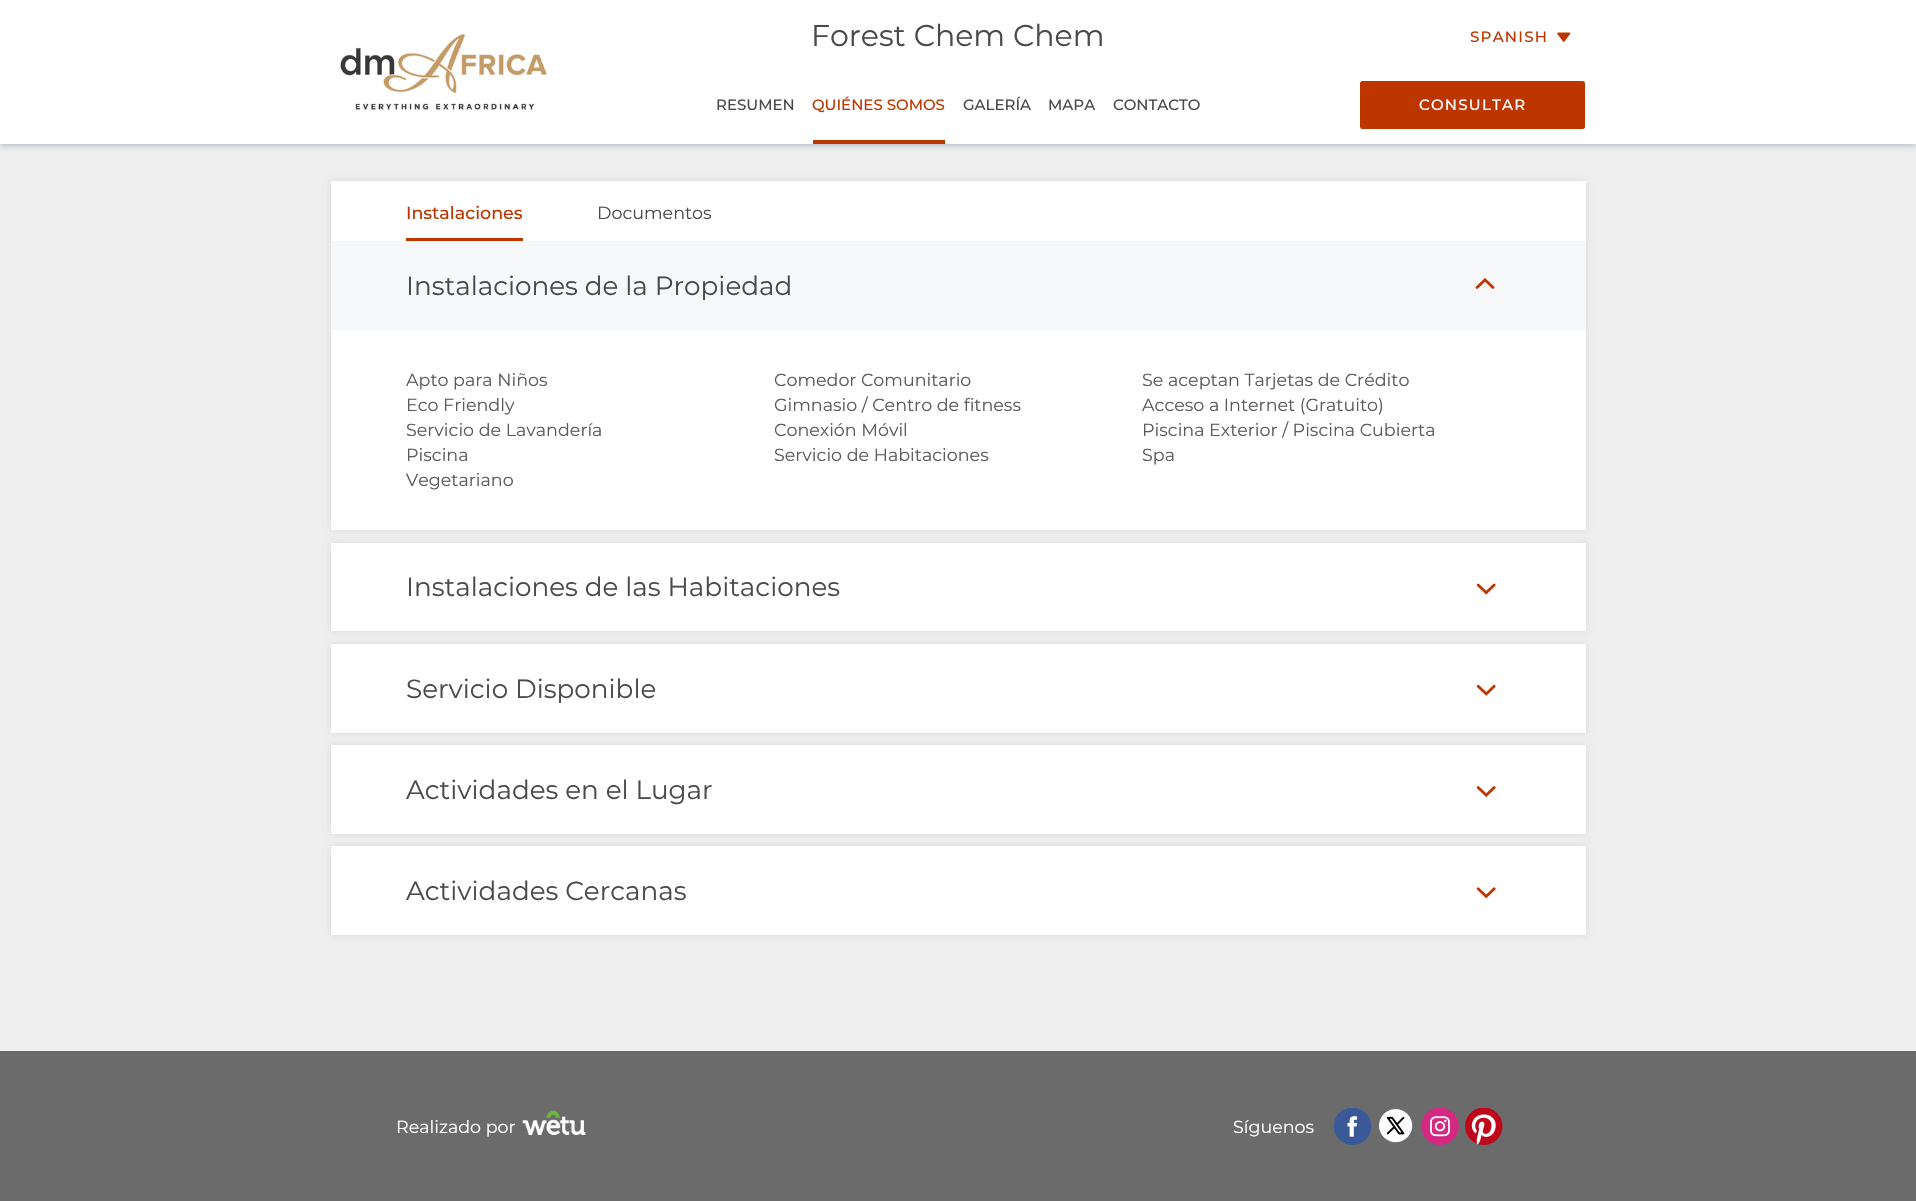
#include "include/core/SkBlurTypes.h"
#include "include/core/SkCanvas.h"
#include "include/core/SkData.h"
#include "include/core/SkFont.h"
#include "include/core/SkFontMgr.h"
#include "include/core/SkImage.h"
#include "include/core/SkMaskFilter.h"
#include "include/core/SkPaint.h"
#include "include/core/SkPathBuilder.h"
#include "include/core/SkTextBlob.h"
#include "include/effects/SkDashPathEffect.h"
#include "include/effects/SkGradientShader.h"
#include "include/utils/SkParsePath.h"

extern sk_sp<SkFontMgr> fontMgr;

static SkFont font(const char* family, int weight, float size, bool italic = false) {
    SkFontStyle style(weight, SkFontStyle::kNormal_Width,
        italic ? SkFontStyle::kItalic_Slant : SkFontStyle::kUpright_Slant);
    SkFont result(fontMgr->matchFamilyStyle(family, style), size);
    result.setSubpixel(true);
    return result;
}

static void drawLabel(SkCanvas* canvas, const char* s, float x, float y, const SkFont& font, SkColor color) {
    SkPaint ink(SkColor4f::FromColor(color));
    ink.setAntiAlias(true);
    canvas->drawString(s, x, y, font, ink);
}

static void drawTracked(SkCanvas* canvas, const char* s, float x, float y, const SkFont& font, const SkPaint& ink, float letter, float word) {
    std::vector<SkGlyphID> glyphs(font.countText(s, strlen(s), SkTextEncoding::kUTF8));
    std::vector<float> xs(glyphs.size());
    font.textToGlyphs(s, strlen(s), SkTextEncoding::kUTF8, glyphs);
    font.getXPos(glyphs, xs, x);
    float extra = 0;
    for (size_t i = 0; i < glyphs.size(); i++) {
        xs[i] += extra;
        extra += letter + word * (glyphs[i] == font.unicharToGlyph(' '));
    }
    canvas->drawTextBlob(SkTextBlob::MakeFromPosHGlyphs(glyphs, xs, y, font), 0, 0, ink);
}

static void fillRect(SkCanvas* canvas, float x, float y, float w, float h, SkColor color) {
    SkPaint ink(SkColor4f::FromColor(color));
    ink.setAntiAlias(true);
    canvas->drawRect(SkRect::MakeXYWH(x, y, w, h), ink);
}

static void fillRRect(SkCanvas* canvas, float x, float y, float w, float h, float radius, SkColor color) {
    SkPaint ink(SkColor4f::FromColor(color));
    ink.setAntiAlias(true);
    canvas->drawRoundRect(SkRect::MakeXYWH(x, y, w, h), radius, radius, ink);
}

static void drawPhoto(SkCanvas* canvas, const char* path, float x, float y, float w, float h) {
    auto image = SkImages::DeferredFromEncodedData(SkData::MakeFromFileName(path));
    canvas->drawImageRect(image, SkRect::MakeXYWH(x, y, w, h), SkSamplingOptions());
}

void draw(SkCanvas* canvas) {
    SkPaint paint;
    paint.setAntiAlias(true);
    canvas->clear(0xFFEFEFEF);
    paint.setColor(0x807F8EA0);
    paint.setMaskFilter(SkMaskFilter::MakeBlur(kNormal_SkBlurStyle, 3));
    canvas->drawRect(SkRect::MakeXYWH(0, 3, 1916, 143), paint);
    paint.setMaskFilter(nullptr);
    fillRect(canvas, 0, 0, 1916, 144, 0xFFFFFFFF);
    drawPhoto(canvas, "assets/img1.png", 340, 34, 207, 76);
    SkFont font1 = font("Montserrat", 400, 30);
    drawLabel(canvas, "Forest Chem Chem", 811, 46, font1, 0xFF4A4A4A);
    SkFont font2 = font("Montserrat", 500, 15);
    drawLabel(canvas, "RESUMEN", 716, 110, font2, 0xFF4A4A4A);
    drawLabel(canvas, "QUIÉNES SOMOS", 812, 110, font2, 0xFFBD3600);
    fillRect(canvas, 813, 140, 132, 4, 0xFFBD3600);
    drawLabel(canvas, "GALERÍA", 963, 110, font2, 0xFF4A4A4A);
    drawLabel(canvas, "MAPA", 1048, 110, font2, 0xFF4A4A4A);
    drawLabel(canvas, "CONTACTO", 1113, 110, font2, 0xFF4A4A4A);
    paint.setColor(0xFFBD3600);
    drawTracked(canvas, "SPANISH", 1470, 42, font2, paint, 1.25f, 0);
    drawPhoto(canvas, "assets/img2.png", 1557, 32, 14, 10);
    fillRRect(canvas, 1360, 81, 225, 48, 2.5f, 0xFFBD3600);
    paint.setColor(0xFFFFFFFF);
    drawTracked(canvas, "CONSULTAR", 1419, 110, font2, paint, 1.25f, 0);
    paint.setColor(0x1A000000);
    paint.setMaskFilter(SkMaskFilter::MakeBlur(kNormal_SkBlurStyle, 3));
    canvas->drawRect(SkRect::MakeXYWH(331, 181, 1255, 349), paint);
    paint.setMaskFilter(nullptr);
    fillRect(canvas, 331, 181, 1255, 349, 0xFFFFFFFF);
    SkFont font3 = font("Montserrat", 500, 17.5f);
    drawLabel(canvas, "Instalaciones", 406, 219, font3, 0xFFBD3600);
    fillRect(canvas, 406, 238, 117, 3, 0xFFBD3600);
    SkFont font4 = font("Montserrat", 400, 17.5f);
    drawLabel(canvas, "Documentos", 597, 219, font4, 0xFF4A4A4A);
    fillRect(canvas, 331, 241, 1255, 89, 0xFFF7F8FA);
    SkFont font5 = font("Montserrat", 400, 26.25f);
    drawLabel(canvas, "Instalaciones de la Propiedad", 406, 295, font5, 0xFF4A4A4A);
    drawPhoto(canvas, "assets/img3.png", 1475, 278, 20, 11);
    drawLabel(canvas, "Apto para Niños", 406, 386, font4, 0xFF5A5A5A);
    drawLabel(canvas, "Comedor Comunitario", 774, 386, font4, 0xFF5A5A5A);
    drawLabel(canvas, "Se aceptan Tarjetas de Crédito", 1142, 386, font4, 0xFF5A5A5A);
    drawLabel(canvas, "Eco Friendly", 406, 411, font4, 0xFF5A5A5A);
    drawLabel(canvas, "Gimnasio / Centro de fitness", 774, 411, font4, 0xFF5A5A5A);
    drawLabel(canvas, "Acceso a Internet (Gratuito)", 1142, 411, font4, 0xFF5A5A5A);
    drawLabel(canvas, "Servicio de Lavandería", 406, 436, font4, 0xFF5A5A5A);
    drawLabel(canvas, "Conexión Móvil", 774, 436, font4, 0xFF5A5A5A);
    drawLabel(canvas, "Piscina Exterior / Piscina Cubierta", 1142, 436, font4, 0xFF5A5A5A);
    drawLabel(canvas, "Piscina", 406, 461, font4, 0xFF5A5A5A);
    drawLabel(canvas, "Servicio de Habitaciones", 774, 461, font4, 0xFF5A5A5A);
    drawLabel(canvas, "Spa", 1142, 461, font4, 0xFF5A5A5A);
    drawLabel(canvas, "Vegetariano", 406, 486, font4, 0xFF5A5A5A);
    paint.setMaskFilter(SkMaskFilter::MakeBlur(kNormal_SkBlurStyle, 3));
    canvas->drawRect(SkRect::MakeXYWH(331, 543, 1255, 88), paint);
    paint.setMaskFilter(nullptr);
    fillRect(canvas, 331, 543, 1255, 88, 0xFFFFFFFF);
    drawLabel(canvas, "Instalaciones de las Habitaciones", 406, 596, font5, 0xFF4A4A4A);
    drawPhoto(canvas, "assets/img4.png", 1476, 583, 20, 12);
    paint.setMaskFilter(SkMaskFilter::MakeBlur(kNormal_SkBlurStyle, 3));
    canvas->drawRect(SkRect::MakeXYWH(331, 644, 1255, 89), paint);
    paint.setMaskFilter(nullptr);
    fillRect(canvas, 331, 644, 1255, 89, 0xFFFFFFFF);
    drawLabel(canvas, "Servicio Disponible", 406, 698, font5, 0xFF4A4A4A);
    drawPhoto(canvas, "assets/img5.png", 1476, 684, 20, 12);
    paint.setMaskFilter(SkMaskFilter::MakeBlur(kNormal_SkBlurStyle, 3));
    canvas->drawRect(SkRect::MakeXYWH(331, 745, 1255, 89), paint);
    paint.setMaskFilter(nullptr);
    fillRect(canvas, 331, 745, 1255, 89, 0xFFFFFFFF);
    drawLabel(canvas, "Actividades en el Lugar", 406, 799, font5, 0xFF4A4A4A);
    drawPhoto(canvas, "assets/img6.png", 1476, 786, 20, 11);
    paint.setMaskFilter(SkMaskFilter::MakeBlur(kNormal_SkBlurStyle, 3));
    canvas->drawRect(SkRect::MakeXYWH(331, 846, 1255, 89), paint);
    paint.setMaskFilter(nullptr);
    fillRect(canvas, 331, 846, 1255, 89, 0xFFFFFFFF);
    drawLabel(canvas, "Actividades Cercanas", 406, 900, font5, 0xFF4A4A4A);
    drawPhoto(canvas, "assets/img7.png", 1476, 887, 20, 12);
    fillRect(canvas, 0, 1051, 1916, 150, 0xFF6B6B6B);
    drawLabel(canvas, "Realizado por", 396, 1133, font4, 0xFFFFFFFF);
    drawPhoto(canvas, "assets/img8.png", 522, 1110, 64, 26);
    drawLabel(canvas, "Síguenos", 1233, 1133, font4, 0xFFFFFFFF);
    drawPhoto(canvas, "assets/img9.png", 1334, 1108, 37, 37);
    drawPhoto(canvas, "assets/img10.png", 1379, 1109, 34, 34);
    drawPhoto(canvas, "assets/img11.png", 1421, 1108, 38, 37);
    drawPhoto(canvas, "assets/img12.png", 1465, 1108, 38, 37);
}
